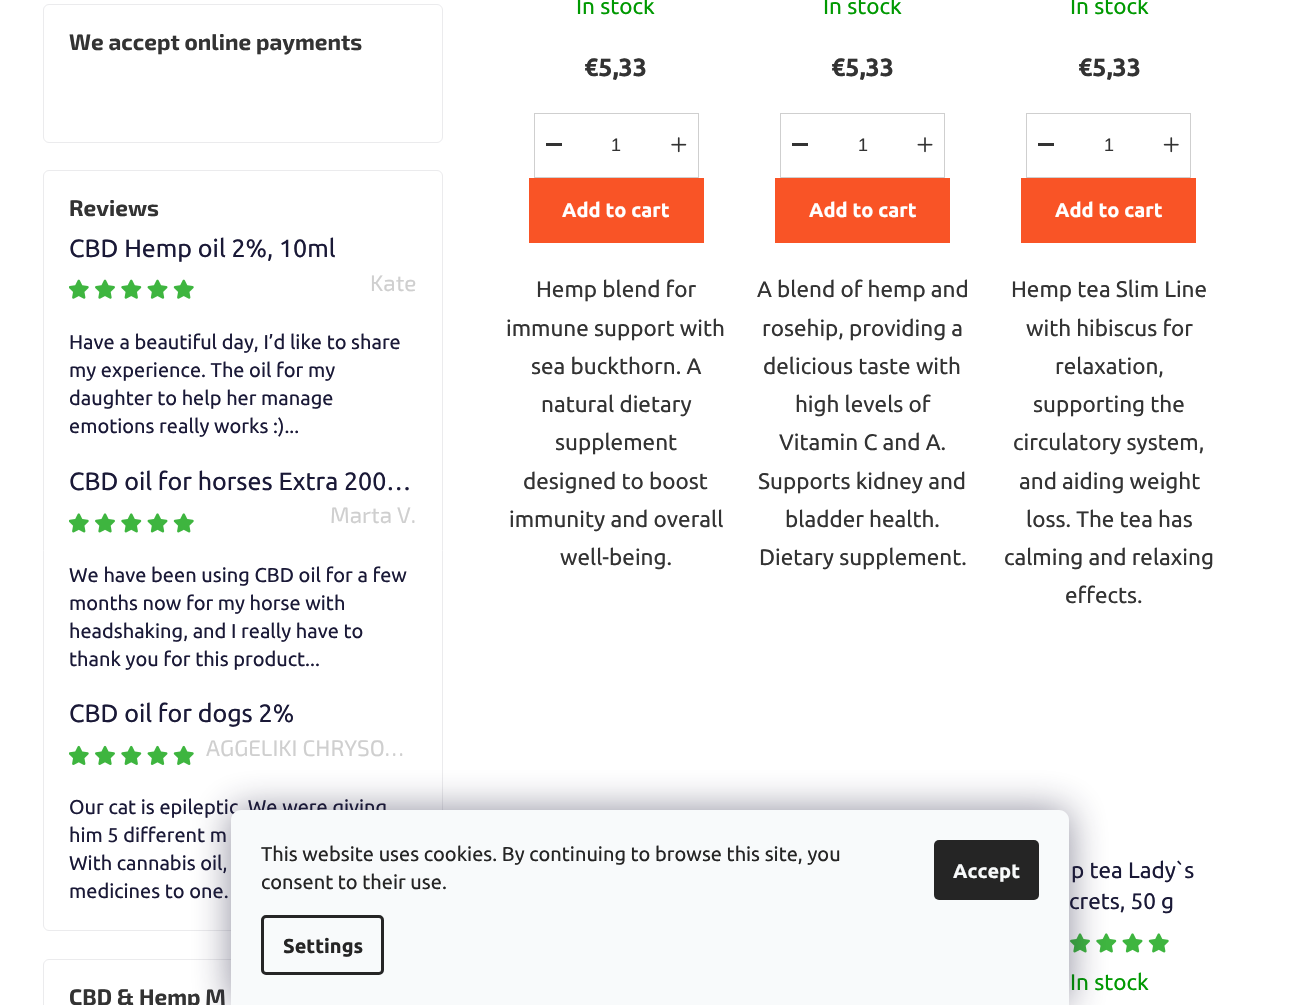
#include "include/core/SkBlurTypes.h"
#include "include/core/SkCanvas.h"
#include "include/core/SkData.h"
#include "include/core/SkFont.h"
#include "include/core/SkFontMgr.h"
#include "include/core/SkImage.h"
#include "include/core/SkMaskFilter.h"
#include "include/core/SkPaint.h"
#include "include/core/SkPathBuilder.h"
#include "include/core/SkTextBlob.h"
#include "include/effects/SkDashPathEffect.h"
#include "include/effects/SkGradientShader.h"
#include "include/utils/SkParsePath.h"

extern sk_sp<SkFontMgr> fontMgr;

static SkFont font(const char* family, int weight, float size, bool italic = false) {
    SkFontStyle style(weight, SkFontStyle::kNormal_Width,
        italic ? SkFontStyle::kItalic_Slant : SkFontStyle::kUpright_Slant);
    SkFont result(fontMgr->matchFamilyStyle(family, style), size);
    result.setSubpixel(true);
    return result;
}

static void drawLabel(SkCanvas* canvas, const char* s, float x, float y, const SkFont& font, SkColor color) {
    SkPaint ink(SkColor4f::FromColor(color));
    ink.setAntiAlias(true);
    canvas->drawString(s, x, y, font, ink);
}

static void fillRect(SkCanvas* canvas, float x, float y, float w, float h, SkColor color) {
    SkPaint ink(SkColor4f::FromColor(color));
    ink.setAntiAlias(true);
    canvas->drawRect(SkRect::MakeXYWH(x, y, w, h), ink);
}

static void fillRRect(SkCanvas* canvas, float x, float y, float w, float h, float radius, SkColor color) {
    SkPaint ink(SkColor4f::FromColor(color));
    ink.setAntiAlias(true);
    canvas->drawRoundRect(SkRect::MakeXYWH(x, y, w, h), radius, radius, ink);
}

static void drawPhoto(SkCanvas* canvas, const char* path, float x, float y, float w, float h) {
    auto image = SkImages::DeferredFromEncodedData(SkData::MakeFromFileName(path));
    canvas->drawImageRect(image, SkRect::MakeXYWH(x, y, w, h), SkSamplingOptions());
}

static SkPath parsePath(const char* data, bool evenOdd = false) {
    SkPath result = *SkParsePath::FromSVGString(data);
    if (evenOdd) result.setFillType(SkPathFillType::kEvenOdd);
    return result;
}

void draw(SkCanvas* canvas) {
    SkPaint paint;
    paint.setAntiAlias(true);
    canvas->clear(0xFFFFFFFF);
    paint.setStroke(true);
    paint.setStrokeWidth(1);
    paint.setColor(0xFFEBEBED);
    canvas->drawRoundRect(SkRect::MakeXYWH(43.5f, 4.5f, 399, 138), 5.5f, 5.5f, paint);
    SkFont font1 = font("Exo 2", 700, 22.5f);
    drawLabel(canvas, "We accept online payments", 69, 50, font1, 0xFF333333);
    canvas->drawRoundRect(SkRect::MakeXYWH(43.5f, 170.5f, 399, 760), 5.5f, 5.5f, paint);
    drawLabel(canvas, "Reviews", 69, 216, font1, 0xFF333333);
    SkFont font2 = font("Ubuntu", 400, 25);
    drawLabel(canvas, "CBD Hemp oil 2%, 10ml", 69, 257, font2, 0xFF1A1937);
    drawPhoto(canvas, "assets/img1.png", 69, 279, 20, 20);
    drawPhoto(canvas, "assets/img2.png", 95, 279, 20, 20);
    drawPhoto(canvas, "assets/img3.png", 121, 279, 21, 20);
    drawPhoto(canvas, "assets/img4.png", 147, 279, 21, 20);
    drawPhoto(canvas, "assets/img5.png", 173, 279, 21, 20);
    SkFont font3 = font("Exo 2", 400, 22.5f);
    drawLabel(canvas, "Kate", 370, 291, font3, 0xFFCFCFCF);
    SkFont font4 = font("Ubuntu", 400, 20);
    drawLabel(canvas, "Have a beautiful day, I’d like to share", 69, 349, font4, 0xFF1A1937);
    drawLabel(canvas, "my experience. The oil for my", 69, 377, font4, 0xFF1A1937);
    drawLabel(canvas, "daughter to help her manage", 69, 405, font4, 0xFF1A1937);
    drawLabel(canvas, "emotions really works :)...", 69, 433, font4, 0xFF1A1937);
    drawLabel(canvas, "CBD oil for horses Extra 200…", 69, 490, font2, 0xFF1A1937);
    drawPhoto(canvas, "assets/img6.png", 69, 513, 20, 20);
    drawPhoto(canvas, "assets/img7.png", 95, 513, 20, 20);
    drawPhoto(canvas, "assets/img8.png", 121, 513, 21, 20);
    drawPhoto(canvas, "assets/img9.png", 147, 513, 21, 20);
    drawPhoto(canvas, "assets/img10.png", 173, 513, 21, 20);
    drawLabel(canvas, "Marta V.", 330, 523, font3, 0xFFCFCFCF);
    drawLabel(canvas, "We have been using CBD oil for a few", 69, 582, font4, 0xFF1A1937);
    drawLabel(canvas, "months now for my horse with", 69, 610, font4, 0xFF1A1937);
    drawLabel(canvas, "headshaking, and I really have to", 69, 638, font4, 0xFF1A1937);
    drawLabel(canvas, "thank you for this product...", 69, 666, font4, 0xFF1A1937);
    drawLabel(canvas, "CBD oil for dogs 2%", 69, 722, font2, 0xFF1A1937);
    drawPhoto(canvas, "assets/img11.png", 69, 745, 20, 20);
    drawPhoto(canvas, "assets/img12.png", 95, 745, 20, 20);
    drawPhoto(canvas, "assets/img13.png", 121, 745, 21, 20);
    drawPhoto(canvas, "assets/img14.png", 147, 745, 21, 20);
    drawPhoto(canvas, "assets/img15.png", 173, 745, 21, 20);
    drawLabel(canvas, "AGGELIKI CHRYSO…", 206, 756, font3, 0xFFCFCFCF);
    drawLabel(canvas, "Our cat is epileptic. We were giving", 69, 814, font4, 0xFF1A1937);
    drawLabel(canvas, "him 5 different m", 69, 842, font4, 0xFF1A1937);
    drawLabel(canvas, "With cannabis oil,", 69, 870, font4, 0xFF1A1937);
    drawLabel(canvas, "medicines to one.", 69, 898, font4, 0xFF1A1937);
    canvas->drawRoundRect(SkRect::MakeXYWH(43.5f, 959.5f, 399, 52), 5.5f, 5.5f, paint);
    drawLabel(canvas, "CBD & Hemp M", 69, 1005, font1, 0xFF333333);
    SkFont font5 = font("Ubuntu", 400, 22.5f);
    drawLabel(canvas, "In stock", 576, 14, font5, 0xFF009901);
    SkFont font6 = font("Ubuntu", 700, 25);
    drawLabel(canvas, "€5,33", 584, 76, font6, 0xFF333333);
    paint.setColor(0xFFCFCFCF);
    canvas->drawRect(SkRect::MakeXYWH(534.5f, 113.5f, 164, 64), paint);
    fillRect(canvas, 546, 143, 16, 3, 0xFF333333);
    SkFont font7 = font("Liberation Sans", 400, 18);
    drawLabel(canvas, "1", 611, 151, font7, 0xFF333333);
    drawPhoto(canvas, "assets/img16.png", 671, 137, 16, 16);
    fillRect(canvas, 529, 178, 175, 65, 0xFFF95426);
    SkFont font8 = font("Ubuntu", 700, 20);
    drawLabel(canvas, "Add to cart", 562, 217, font8, 0xFFFFFFFF);
    drawLabel(canvas, "Hemp blend for", 536, 297, font5, 0xFF333333);
    drawLabel(canvas, "immune support with", 506, 336, font5, 0xFF333333);
    drawLabel(canvas, "sea buckthorn. A", 531, 374, font5, 0xFF333333);
    drawLabel(canvas, "natural dietary", 541, 412, font5, 0xFF333333);
    drawLabel(canvas, "supplement", 555, 450, font5, 0xFF333333);
    drawLabel(canvas, "designed to boost", 523, 489, font5, 0xFF333333);
    drawLabel(canvas, "immunity and overall", 509, 527, font5, 0xFF333333);
    drawLabel(canvas, "well-being.", 560, 565, font5, 0xFF333333);
    drawLabel(canvas, "In stock", 823, 14, font5, 0xFF009901);
    drawLabel(canvas, "€5,33", 831, 76, font6, 0xFF333333);
    canvas->drawRect(SkRect::MakeXYWH(780.5f, 113.5f, 164, 64), paint);
    fillRect(canvas, 792, 143, 16, 3, 0xFF333333);
    drawLabel(canvas, "1", 858, 151, font7, 0xFF333333);
    drawPhoto(canvas, "assets/img17.png", 917, 137, 16, 16);
    fillRect(canvas, 775, 178, 175, 65, 0xFFF95426);
    drawLabel(canvas, "Add to cart", 809, 217, font8, 0xFFFFFFFF);
    drawLabel(canvas, "A blend of hemp and", 757, 297, font5, 0xFF333333);
    drawLabel(canvas, "rosehip, providing a", 762, 336, font5, 0xFF333333);
    drawLabel(canvas, "delicious taste with", 763, 374, font5, 0xFF333333);
    drawLabel(canvas, "high levels of", 795, 412, font5, 0xFF333333);
    drawLabel(canvas, "Vitamin C and A.", 779, 450, font5, 0xFF333333);
    drawLabel(canvas, "Supports kidney and", 758, 489, font5, 0xFF333333);
    drawLabel(canvas, "bladder health.", 785, 527, font5, 0xFF333333);
    drawLabel(canvas, "Dietary supplement.", 759, 565, font5, 0xFF333333);
    drawLabel(canvas, "In stock", 1070, 14, font5, 0xFF009901);
    drawLabel(canvas, "€5,33", 1078, 76, font6, 0xFF333333);
    canvas->drawRect(SkRect::MakeXYWH(1026.5f, 113.5f, 164, 64), paint);
    fillRect(canvas, 1038, 143, 16, 3, 0xFF333333);
    drawLabel(canvas, "1", 1104, 151, font7, 0xFF333333);
    drawPhoto(canvas, "assets/img18.png", 1163, 137, 16, 16);
    fillRect(canvas, 1021, 178, 175, 65, 0xFFF95426);
    drawLabel(canvas, "Add to cart", 1055, 217, font8, 0xFFFFFFFF);
    drawLabel(canvas, "Hemp tea Slim Line", 1011, 297, font5, 0xFF333333);
    drawLabel(canvas, "with hibiscus for", 1026, 336, font5, 0xFF333333);
    drawLabel(canvas, "relaxation,", 1055, 374, font5, 0xFF333333);
    drawLabel(canvas, "supporting the", 1033, 412, font5, 0xFF333333);
    drawLabel(canvas, "circulatory system,", 1013, 450, font5, 0xFF333333);
    drawLabel(canvas, "and aiding weight", 1019, 489, font5, 0xFF333333);
    drawLabel(canvas, "loss. The tea has", 1026, 527, font5, 0xFF333333);
    drawLabel(canvas, "calming and relaxing", 1004, 565, font5, 0xFF333333);
    drawLabel(canvas, "effects.", 1065, 603, font5, 0xFF333333);
    drawLabel(canvas, "p tea Lady`s", 1071, 878, font5, 0xFF1A1937);
    drawLabel(canvas, "crets, 50 g", 1069, 909, font5, 0xFF1A1937);
    drawPhoto(canvas, "assets/img7.png", 1070, 933, 20, 20);
    drawPhoto(canvas, "assets/img8.png", 1096, 933, 21, 20);
    drawPhoto(canvas, "assets/img9.png", 1122, 933, 21, 20);
    drawPhoto(canvas, "assets/img10.png", 1148, 933, 21, 20);
    drawLabel(canvas, "In stock", 1070, 990, font5, 0xFF009901);
    paint.setStroke(false);
    paint.setColor(0x801B1939);
    paint.setMaskFilter(SkMaskFilter::MakeBlur(kNormal_SkBlurStyle, 19));
    canvas->drawRoundRect(SkRect::MakeXYWH(231, 810, 838, 195), 10, 10, paint);
    paint.setMaskFilter(nullptr);
    paint.setColor(0xFFF8FAFB);
    canvas->drawPath(parsePath("M241 810H1059C1064.5 810 1069 814.5 1069 820V1005H231V820C231 814.5 235.5 810 241 810Z"), paint);
    drawLabel(canvas, "This website uses cookies. By continuing to browse this site, you", 261, 861, font4, 0xFF252525);
    drawLabel(canvas, "consent to their use.", 261, 889, font4, 0xFF252525);
    paint.setStroke(true);
    paint.setStrokeWidth(3);
    paint.setColor(0xFF252525);
    canvas->drawRoundRect(SkRect::MakeXYWH(262.5f, 916.5f, 120, 57), 3.5f, 3.5f, paint);
    drawLabel(canvas, "Settings", 283, 953, font8, 0xFF252525);
    fillRRect(canvas, 934, 840, 105, 60, 5, 0xFF252525);
    drawLabel(canvas, "Accept", 953, 878, font8, 0xFFF8FAFB);
}
